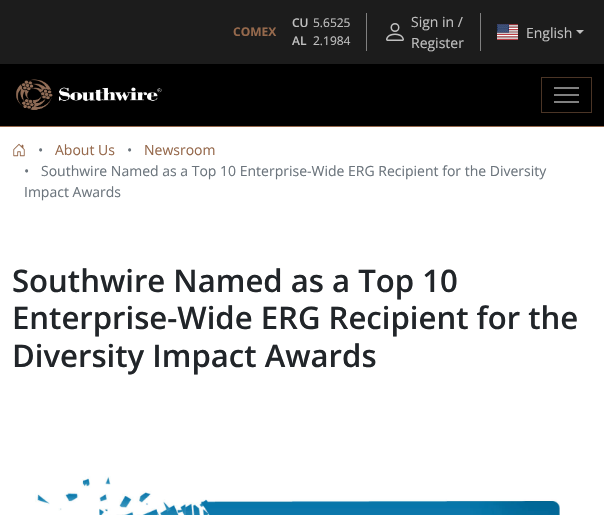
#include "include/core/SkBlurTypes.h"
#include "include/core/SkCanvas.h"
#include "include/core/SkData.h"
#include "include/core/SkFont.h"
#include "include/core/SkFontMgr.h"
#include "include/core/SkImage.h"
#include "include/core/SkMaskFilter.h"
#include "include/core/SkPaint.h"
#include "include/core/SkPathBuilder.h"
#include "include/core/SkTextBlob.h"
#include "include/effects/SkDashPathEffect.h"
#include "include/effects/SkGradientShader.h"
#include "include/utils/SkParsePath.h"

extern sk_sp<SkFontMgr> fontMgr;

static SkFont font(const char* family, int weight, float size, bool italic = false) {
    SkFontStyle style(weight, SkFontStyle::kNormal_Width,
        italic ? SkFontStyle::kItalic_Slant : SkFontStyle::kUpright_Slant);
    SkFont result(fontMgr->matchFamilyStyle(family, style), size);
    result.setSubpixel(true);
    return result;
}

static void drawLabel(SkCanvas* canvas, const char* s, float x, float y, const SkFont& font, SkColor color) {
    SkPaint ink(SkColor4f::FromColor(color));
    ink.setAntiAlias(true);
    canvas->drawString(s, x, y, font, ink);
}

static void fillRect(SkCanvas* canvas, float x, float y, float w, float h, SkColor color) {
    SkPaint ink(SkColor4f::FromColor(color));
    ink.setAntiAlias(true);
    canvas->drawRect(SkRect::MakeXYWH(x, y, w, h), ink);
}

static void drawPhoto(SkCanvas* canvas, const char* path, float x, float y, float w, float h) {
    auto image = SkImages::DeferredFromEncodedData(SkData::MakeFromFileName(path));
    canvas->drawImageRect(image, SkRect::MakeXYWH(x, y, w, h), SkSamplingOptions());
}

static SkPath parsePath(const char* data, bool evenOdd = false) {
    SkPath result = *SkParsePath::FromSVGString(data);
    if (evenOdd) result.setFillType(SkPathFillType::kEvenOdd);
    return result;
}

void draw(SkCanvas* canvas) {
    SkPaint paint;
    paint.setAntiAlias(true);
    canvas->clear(0xFFFFFFFF);
    fillRect(canvas, 0, 64, 604, 62, 0xFF000000);
    fillRect(canvas, 0, 0, 604, 64, 0xFF1C1C1C);
    SkFont font1 = font("Open Sans", 700, 12);
    drawLabel(canvas, "COMEX", 233, 36, font1, 0xFF96694C);
    SkFont font2 = font("Open Sans", 600, 12);
    drawLabel(canvas, "CU", 292, 27, font2, 0xFFC0C0C0);
    SkFont font3 = font("Open Sans", 400, 12);
    drawLabel(canvas, "5.6525", 313, 27, font3, 0xFFC0C0C0);
    drawLabel(canvas, "AL", 292, 45, font2, 0xFFC0C0C0);
    drawLabel(canvas, "2.1984", 313, 45, font3, 0xFFC0C0C0);
    fillRect(canvas, 366, 13, 1, 38, 0xFF808080);
    drawPhoto(canvas, "assets/img1.png", 386, 23, 18, 18);
    SkFont font4 = font("Open Sans", 400, 14);
    drawLabel(canvas, "Sign in /", 411, 27, font4, 0xFFC0C0C0);
    drawLabel(canvas, "Register", 411, 48, font4, 0xFFC0C0C0);
    fillRect(canvas, 480, 13, 1, 38, 0xFF808080);
    drawPhoto(canvas, "assets/img2.png", 497, 24, 21, 16);
    drawLabel(canvas, "English", 526, 38, font4, 0xFFC0C0C0);
    paint.setColor(0xFFC0C0C0);
    canvas->drawPath(parsePath("M576 30H584L580 34Z"), paint);
    fillRect(canvas, 0, 126, 604, 1, 0xFF96694C);
    drawPhoto(canvas, "assets/img3.png", 16, 79, 146, 31);
    paint.setStroke(true);
    paint.setStrokeWidth(1);
    paint.setColor(0xFF4B3526);
    canvas->drawRect(SkRect::MakeXYWH(541.5f, 77.5f, 50, 35), paint);
    fillRect(canvas, 554, 87, 25, 2, 0xFF808080);
    fillRect(canvas, 554, 94, 25, 2, 0xFF808080);
    fillRect(canvas, 554, 101, 25, 2, 0xFF808080);
    drawPhoto(canvas, "assets/img4.png", 13, 143, 12, 14);
    drawLabel(canvas, "•", 38, 155, font4, 0xFF6C757D);
    drawLabel(canvas, "About Us", 55, 155, font4, 0xFF96694C);
    drawLabel(canvas, "•", 127, 155, font4, 0xFF6C757D);
    drawLabel(canvas, "Newsroom", 144, 155, font4, 0xFF96694C);
    drawLabel(canvas, "•", 24, 176, font4, 0xFF6C757D);
    drawLabel(canvas, "Southwire Named as a Top 10 Enterprise-Wide ERG Recipient for the Diversity", 41, 176, font4, 0xFF6C757D);
    drawLabel(canvas, "Impact Awards", 24, 197, font4, 0xFF6C757D);
    SkFont font5 = font("Open Sans", 600, 31.1f);
    drawLabel(canvas, "Southwire Named as a Top 10", 12, 292, font5, 0xFF212529);
    drawLabel(canvas, "Enterprise-Wide ERG Recipient for the", 12, 329, font5, 0xFF212529);
    drawLabel(canvas, "Diversity Impact Awards", 12, 367, font5, 0xFF212529);
    drawPhoto(canvas, "assets/img5.png", 35, 476, 525, 39);
}
